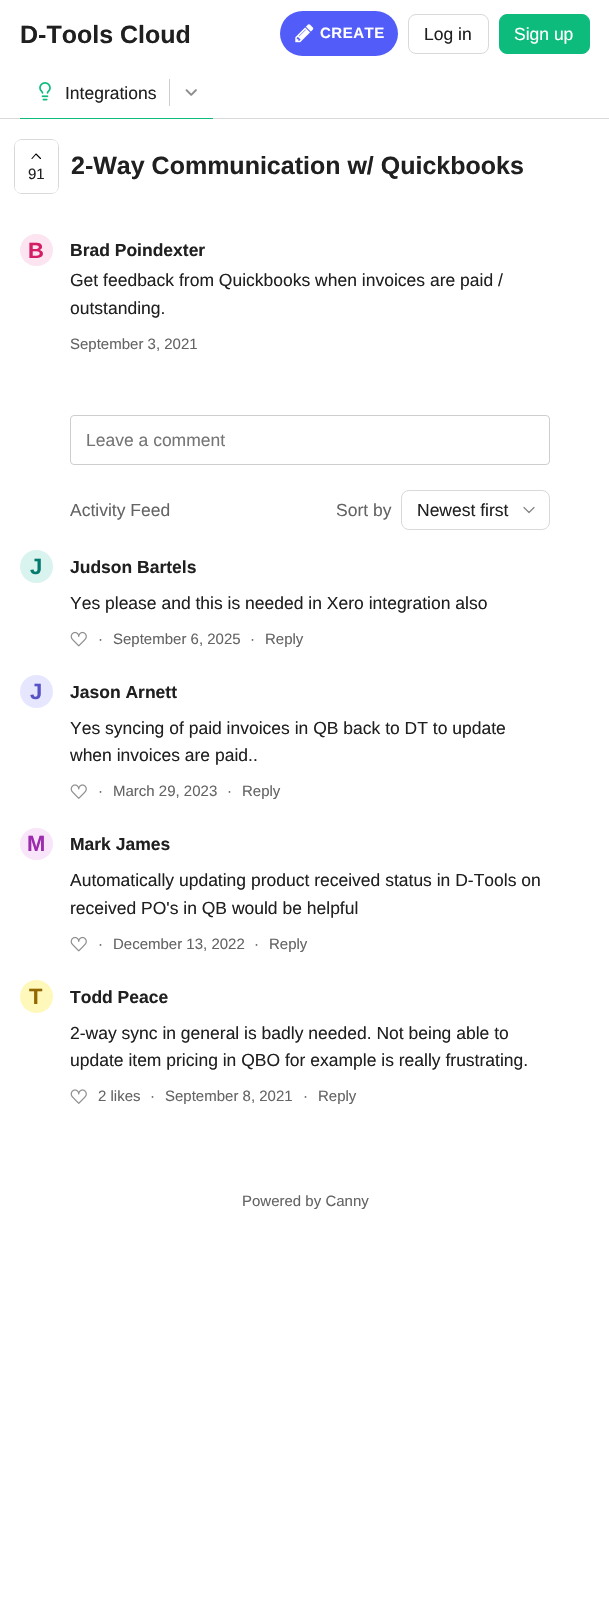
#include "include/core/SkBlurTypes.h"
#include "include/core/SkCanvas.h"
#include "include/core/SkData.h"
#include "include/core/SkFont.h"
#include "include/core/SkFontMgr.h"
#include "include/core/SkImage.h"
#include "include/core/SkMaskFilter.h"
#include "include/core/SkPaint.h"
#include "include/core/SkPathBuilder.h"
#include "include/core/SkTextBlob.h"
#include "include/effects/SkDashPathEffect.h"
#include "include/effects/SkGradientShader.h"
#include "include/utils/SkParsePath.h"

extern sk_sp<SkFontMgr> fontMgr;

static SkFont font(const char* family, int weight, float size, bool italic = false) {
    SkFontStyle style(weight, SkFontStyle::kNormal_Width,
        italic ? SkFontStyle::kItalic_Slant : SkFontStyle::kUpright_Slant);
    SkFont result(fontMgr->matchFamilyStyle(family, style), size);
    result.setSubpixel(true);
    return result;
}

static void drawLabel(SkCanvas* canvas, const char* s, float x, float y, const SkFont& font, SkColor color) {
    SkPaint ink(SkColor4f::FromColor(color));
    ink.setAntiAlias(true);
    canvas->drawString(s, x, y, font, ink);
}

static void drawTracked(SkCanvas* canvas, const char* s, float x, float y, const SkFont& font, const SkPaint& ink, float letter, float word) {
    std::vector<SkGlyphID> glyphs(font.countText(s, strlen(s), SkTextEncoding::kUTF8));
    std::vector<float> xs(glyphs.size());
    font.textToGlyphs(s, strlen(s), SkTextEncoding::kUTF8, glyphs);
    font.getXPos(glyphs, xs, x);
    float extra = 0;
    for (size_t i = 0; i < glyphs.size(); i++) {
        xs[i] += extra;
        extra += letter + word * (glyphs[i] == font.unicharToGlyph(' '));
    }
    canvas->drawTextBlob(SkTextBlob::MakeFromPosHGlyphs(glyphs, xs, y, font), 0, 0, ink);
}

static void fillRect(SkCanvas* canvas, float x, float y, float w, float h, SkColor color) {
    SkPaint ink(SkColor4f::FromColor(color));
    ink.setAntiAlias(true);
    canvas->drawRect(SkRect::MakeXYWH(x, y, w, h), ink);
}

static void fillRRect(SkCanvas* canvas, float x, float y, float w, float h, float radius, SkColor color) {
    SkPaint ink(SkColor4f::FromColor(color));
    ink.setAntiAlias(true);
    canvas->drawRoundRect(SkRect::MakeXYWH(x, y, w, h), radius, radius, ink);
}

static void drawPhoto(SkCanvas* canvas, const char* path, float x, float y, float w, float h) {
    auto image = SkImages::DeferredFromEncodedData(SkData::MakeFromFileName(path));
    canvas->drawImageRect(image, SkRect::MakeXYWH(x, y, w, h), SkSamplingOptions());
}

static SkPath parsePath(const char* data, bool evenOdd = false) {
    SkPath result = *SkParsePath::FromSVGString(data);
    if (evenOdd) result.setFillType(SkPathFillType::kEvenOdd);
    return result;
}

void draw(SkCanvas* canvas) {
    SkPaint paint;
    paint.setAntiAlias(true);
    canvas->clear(0xFFFFFFFF);
    fillRect(canvas, 0, 118, 609, 1, 0xFFD9D9D9);
    SkFont font1 = font("Liberation Sans", 700, 25);
    drawLabel(canvas, "D-Tools Cloud", 20, 43, font1, 0xFF202020);
    fillRRect(canvas, 280, 11, 118, 45, 22.5f, 0xFF525DF9);
    drawPhoto(canvas, "assets/img1.png", 295, 24, 19, 19);
    SkFont font2 = font("Liberation Sans", 700, 15);
    paint.setColor(0xFFFFFFFF);
    drawTracked(canvas, "CREATE", 320, 38, font2, paint, 0.5f, 0);
    paint.setStroke(true);
    paint.setStrokeWidth(1);
    paint.setColor(0xFFD9D9D9);
    canvas->drawRoundRect(SkRect::MakeXYWH(408.5f, 14.5f, 80, 39), 7.5f, 7.5f, paint);
    SkFont font3 = font("Liberation Sans", 400, 17.5f);
    drawLabel(canvas, "Log in", 424, 40, font3, 0xFF202020);
    paint.setStroke(false);
    paint.setColor(0xFF0DBB7D);
    canvas->drawRoundRect(SkRect::MakeXYWH(499.5f, 14.5f, 90, 39), 7.5f, 7.5f, paint);
    paint.setStroke(true);
    canvas->drawRoundRect(SkRect::MakeXYWH(499.5f, 14.5f, 90, 39), 7.5f, 7.5f, paint);
    drawLabel(canvas, "Sign up", 514, 40, font3, 0xFFFFFFFF);
    fillRect(canvas, 20, 118, 193, 1, 0xFF0DBB7D);
    drawPhoto(canvas, "assets/img2.png", 39, 82, 12, 19);
    fillRect(canvas, 169, 79, 1, 27, 0xFFCECECE);
    drawLabel(canvas, "Integrations", 65, 99, font3, 0xFF202020);
    drawPhoto(canvas, "assets/img3.png", 185, 89, 12, 7);
    paint.setColor(0xFFD9D9D9);
    canvas->drawRoundRect(SkRect::MakeXYWH(14.5f, 139.5f, 44, 54), 7.5f, 7.5f, paint);
    fillRRect(canvas, 15, 140, 43, 53, 6, 0xFFFFFFFF);
    paint.setStrokeWidth(1.1f);
    paint.setStrokeCap(SkPaint::kRound_Cap);
    paint.setStrokeJoin(SkPaint::kRound_Join);
    paint.setColor(0xFF000000);
    canvas->drawPath(parsePath("M40.5 158.5L36 154L32 158.5"), paint);
    SkFont font4 = font("Liberation Sans", 400, 15);
    drawLabel(canvas, "91", 28, 179, font4, 0xFF202020);
    drawLabel(canvas, "2-Way Communication w/ Quickbooks", 71, 174, font1, 0xFF202020);
    fillRRect(canvas, 20, 234, 33, 32, 16, 0xFFFCE5F0);
    SkFont font5 = font("Liberation Sans", 700, 22);
    drawLabel(canvas, "B", 28, 258, font5, 0xFFD31E66);
    SkFont font6 = font("Liberation Sans", 700, 17.5f);
    drawLabel(canvas, "Brad Poindexter", 70, 256, font6, 0xFF202020);
    drawLabel(canvas, "Get feedback from Quickbooks when invoices are paid /", 70, 286, font3, 0xFF202020);
    drawLabel(canvas, "outstanding.", 70, 314, font3, 0xFF202020);
    drawLabel(canvas, "September 3, 2021", 70, 349, font4, 0xFF646464);
    paint.setStrokeWidth(1);
    paint.setStrokeCap(SkPaint::kButt_Cap);
    paint.setStrokeJoin(SkPaint::kMiter_Join);
    paint.setColor(0xFFCECECE);
    canvas->drawRoundRect(SkRect::MakeXYWH(70.5f, 415.5f, 479, 49), 3.5f, 3.5f, paint);
    drawLabel(canvas, "Leave a comment", 86, 446, font3, 0xFF757575);
    drawLabel(canvas, "Activity Feed", 70, 516, font3, 0xFF646464);
    drawLabel(canvas, "Sort by", 336, 516, font3, 0xFF646464);
    paint.setColor(0xFFD9D9D9);
    canvas->drawRoundRect(SkRect::MakeXYWH(401.5f, 490.5f, 148, 39), 7.5f, 7.5f, paint);
    drawLabel(canvas, "Newest first", 417, 516, font3, 0xFF202020);
    paint.setStrokeWidth(1.2f);
    paint.setStrokeCap(SkPaint::kRound_Cap);
    paint.setStrokeJoin(SkPaint::kRound_Join);
    paint.setColor(0xFF838383);
    canvas->drawPath(parsePath("M524 507.5L529 512.5L534 507.5"), paint);
    paint.setStroke(false);
    paint.setColor(0xFFD9F3EE);
    canvas->drawCircle(36.5f, 566.5f, 16.5f, paint);
    drawLabel(canvas, "J", 30, 574, font5, 0xFF067A6F);
    drawLabel(canvas, "Judson Bartels", 70, 573, font6, 0xFF202020);
    drawLabel(canvas, "Yes please and this is needed in Xero integration also", 70, 609, font3, 0xFF202020);
    drawPhoto(canvas, "assets/img4.png", 70, 631, 17, 16);
    drawLabel(canvas, "·", 98, 644, font4, 0xFF646464);
    drawLabel(canvas, "September 6, 2025", 113, 644, font4, 0xFF646464);
    drawLabel(canvas, "·", 250, 644, font4, 0xFF646464);
    drawLabel(canvas, "Reply", 265, 644, font4, 0xFF646464);
    paint.setColor(0xFFE6E7FF);
    canvas->drawCircle(36.5f, 691.5f, 16.5f, paint);
    drawLabel(canvas, "J", 30, 699, font5, 0xFF5753C6);
    drawLabel(canvas, "Jason Arnett", 70, 698, font6, 0xFF202020);
    drawLabel(canvas, "Yes syncing of paid invoices in QB back to DT to update", 70, 734, font3, 0xFF202020);
    drawLabel(canvas, "when invoices are paid..", 70, 761, font3, 0xFF202020);
    drawPhoto(canvas, "assets/img5.png", 70, 784, 17, 15);
    drawLabel(canvas, "·", 98, 796, font4, 0xFF646464);
    drawLabel(canvas, "March 29, 2023", 113, 796, font4, 0xFF646464);
    drawLabel(canvas, "·", 227, 796, font4, 0xFF646464);
    drawLabel(canvas, "Reply", 242, 796, font4, 0xFF646464);
    fillRRect(canvas, 20, 828, 33, 32, 16, 0xFFF9E5F9);
    drawLabel(canvas, "M", 27, 851, font5, 0xFF9C2BAD);
    drawLabel(canvas, "Mark James", 70, 850, font6, 0xFF202020);
    drawLabel(canvas, "Automatically updating product received status in D-Tools on", 70, 886, font3, 0xFF202020);
    drawLabel(canvas, "received PO's in QB would be helpful", 70, 914, font3, 0xFF202020);
    drawPhoto(canvas, "assets/img4.png", 70, 936, 17, 16);
    drawLabel(canvas, "·", 98, 949, font4, 0xFF646464);
    drawLabel(canvas, "December 13, 2022", 113, 949, font4, 0xFF646464);
    drawLabel(canvas, "·", 254, 949, font4, 0xFF646464);
    drawLabel(canvas, "Reply", 269, 949, font4, 0xFF646464);
    paint.setColor(0xFFFFF8BB);
    canvas->drawCircle(36.5f, 996.5f, 16.5f, paint);
    drawLabel(canvas, "T", 29, 1004, font5, 0xFF946800);
    drawLabel(canvas, "Todd Peace", 70, 1003, font6, 0xFF202020);
    drawLabel(canvas, "2-way sync in general is badly needed. Not being able to", 70, 1039, font3, 0xFF202020);
    drawLabel(canvas, "update item pricing in QBO for example is really frustrating.", 70, 1066, font3, 0xFF202020);
    drawPhoto(canvas, "assets/img5.png", 70, 1089, 17, 15);
    drawLabel(canvas, "2 likes", 98, 1101, font4, 0xFF646464);
    drawLabel(canvas, "·", 150, 1101, font4, 0xFF646464);
    drawLabel(canvas, "September 8, 2021", 165, 1101, font4, 0xFF646464);
    drawLabel(canvas, "·", 303, 1101, font4, 0xFF646464);
    drawLabel(canvas, "Reply", 318, 1101, font4, 0xFF646464);
    drawLabel(canvas, "Powered by Canny", 242, 1206, font4, 0xFF646464);
}
